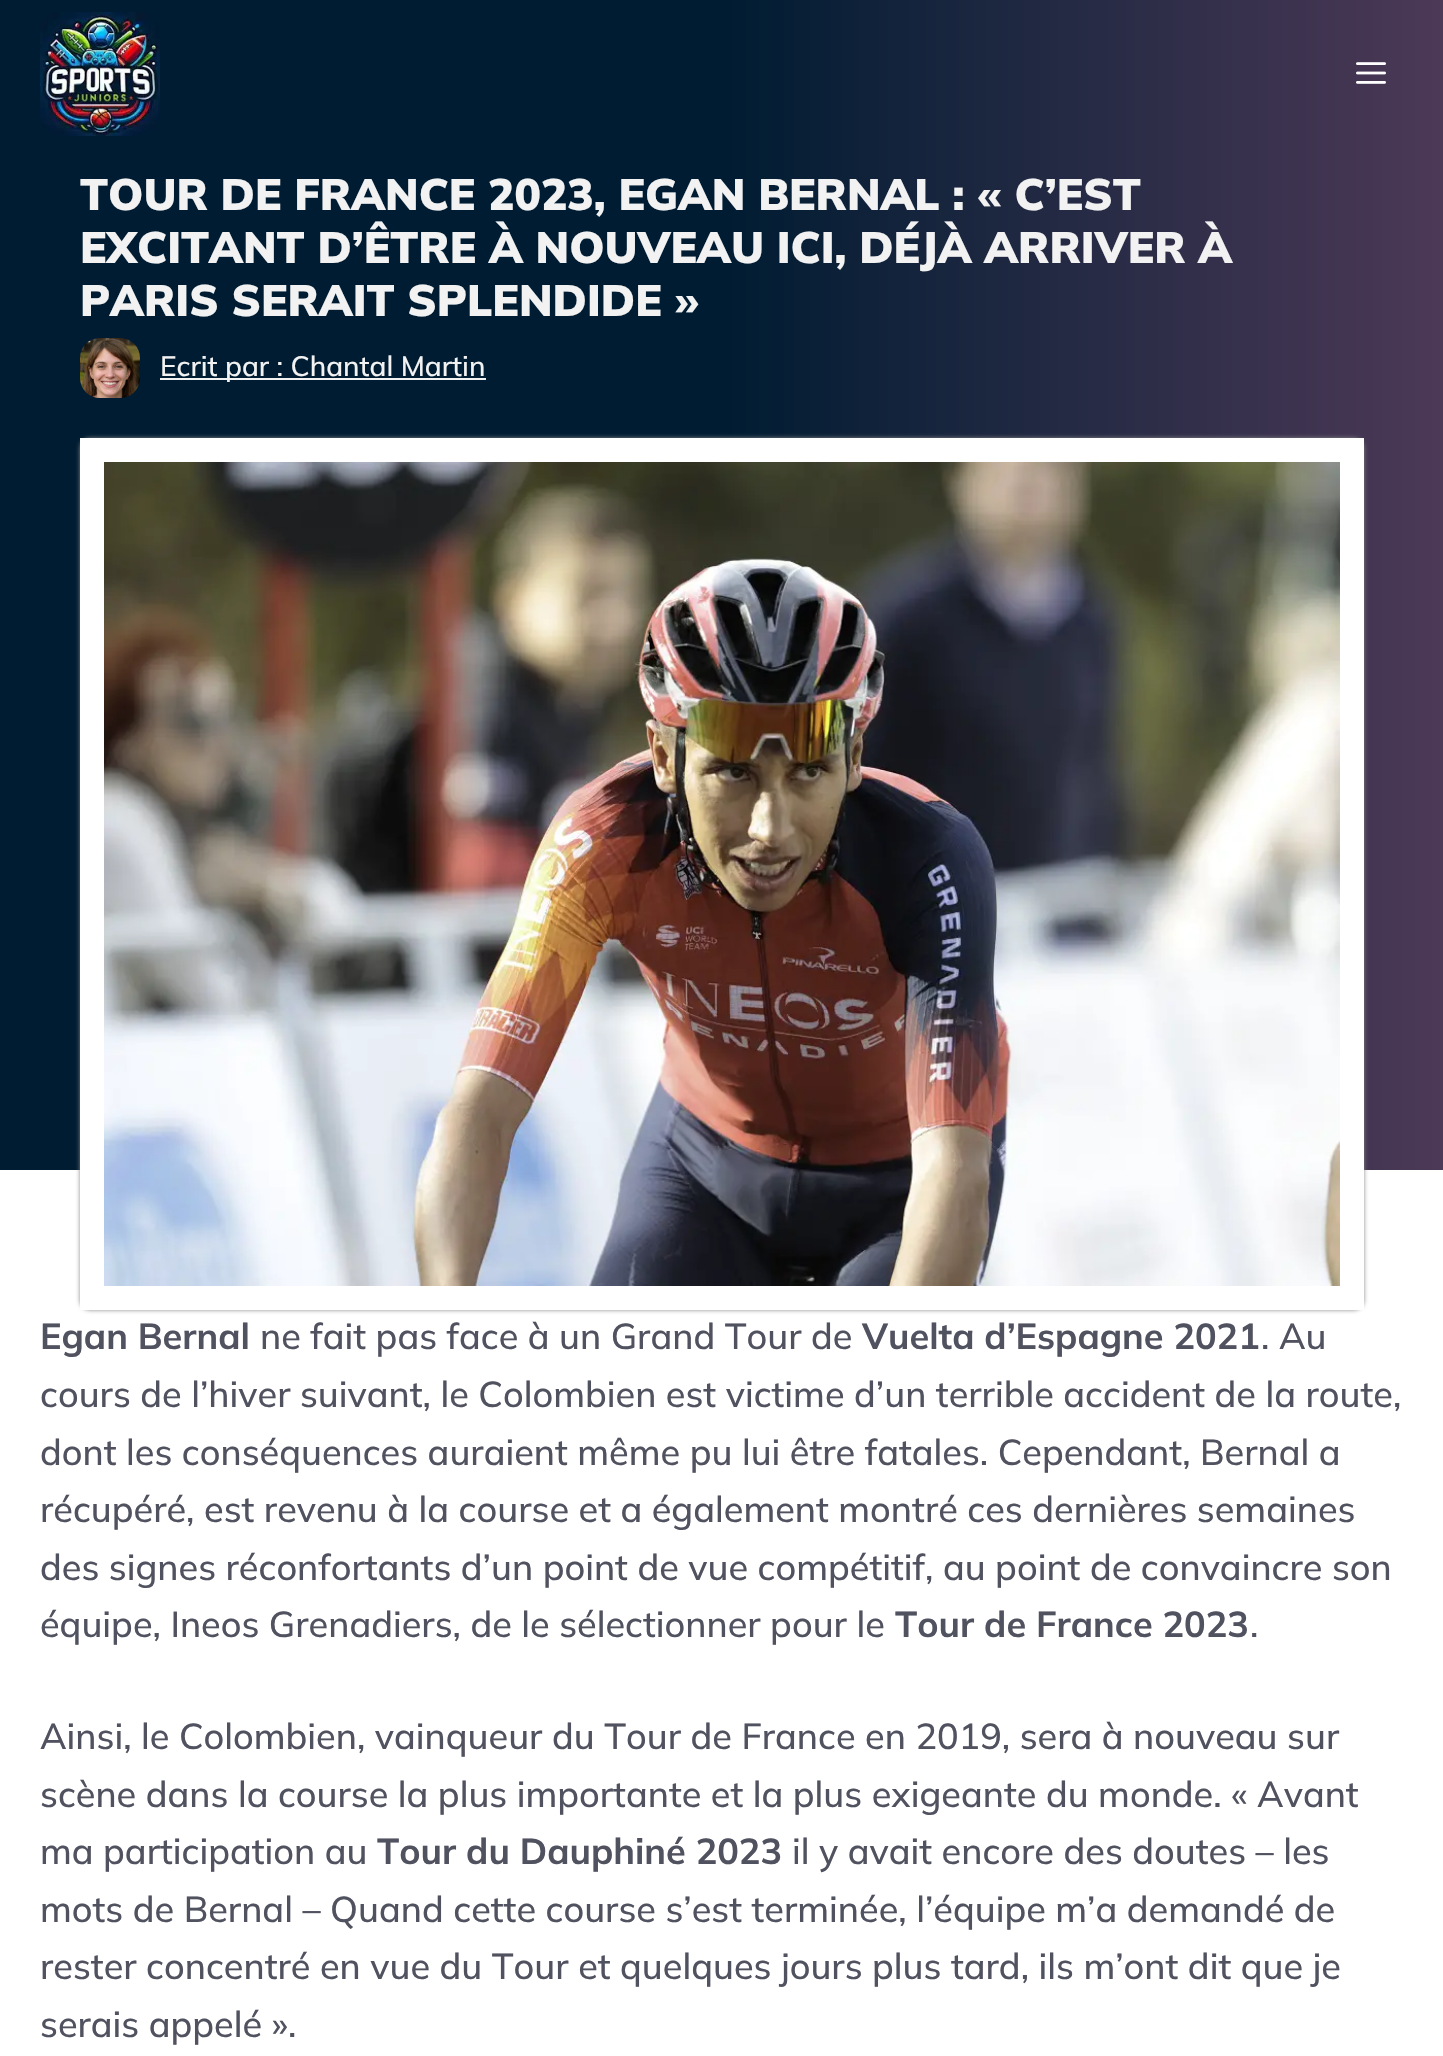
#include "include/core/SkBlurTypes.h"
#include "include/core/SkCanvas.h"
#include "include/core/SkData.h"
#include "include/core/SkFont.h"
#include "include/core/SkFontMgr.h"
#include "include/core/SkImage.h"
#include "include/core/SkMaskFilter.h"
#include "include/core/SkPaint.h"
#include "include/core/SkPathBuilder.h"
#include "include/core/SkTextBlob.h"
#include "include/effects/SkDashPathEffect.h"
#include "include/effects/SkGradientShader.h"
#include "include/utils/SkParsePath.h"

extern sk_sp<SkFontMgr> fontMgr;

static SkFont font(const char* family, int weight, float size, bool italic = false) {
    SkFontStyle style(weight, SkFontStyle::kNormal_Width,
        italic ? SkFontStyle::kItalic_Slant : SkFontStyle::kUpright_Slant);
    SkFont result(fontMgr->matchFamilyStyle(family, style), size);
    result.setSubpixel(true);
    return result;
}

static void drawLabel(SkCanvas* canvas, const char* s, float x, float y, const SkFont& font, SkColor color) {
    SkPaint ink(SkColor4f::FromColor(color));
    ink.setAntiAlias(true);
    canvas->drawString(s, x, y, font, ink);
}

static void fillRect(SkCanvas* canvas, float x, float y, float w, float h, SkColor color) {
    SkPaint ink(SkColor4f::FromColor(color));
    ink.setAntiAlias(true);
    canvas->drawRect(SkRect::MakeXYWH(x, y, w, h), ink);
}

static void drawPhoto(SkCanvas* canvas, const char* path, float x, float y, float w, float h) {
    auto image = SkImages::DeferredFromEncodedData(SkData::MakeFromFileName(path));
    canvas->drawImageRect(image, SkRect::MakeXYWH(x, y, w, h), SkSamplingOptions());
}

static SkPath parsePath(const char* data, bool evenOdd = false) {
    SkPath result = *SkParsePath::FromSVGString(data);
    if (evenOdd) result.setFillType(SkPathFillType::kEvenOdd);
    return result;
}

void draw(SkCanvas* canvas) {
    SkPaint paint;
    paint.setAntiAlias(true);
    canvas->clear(0xFFFFFFFF);
    {
        const SkColor colors[] = {0xFF001C32, 0xFF4C3957};
        const float stops[] = {0.5f, 1};
        const SkPoint ends[] = {{0, 74}, {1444, 74}};
        paint.setShader(SkGradientShader::MakeLinear(ends, colors, stops, 2, SkTileMode::kClamp));
        paint.setAlpha(255);
    }
    canvas->drawRect(SkRect::MakeXYWH(0, 0, 1443, 148), paint);
    drawPhoto(canvas, "assets/img1.png", 40, 12, 120, 124);
    drawPhoto(canvas, "assets/img2.png", 1356, 62, 30, 22);
    {
        const SkColor colors[] = {0xFF001C32, 0xFF4C3957};
        const float stops[] = {0.5f, 1};
        const SkPoint ends[] = {{0, 659}, {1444, 659}};
        paint.setShader(SkGradientShader::MakeLinear(ends, colors, stops, 2, SkTileMode::kClamp));
        paint.setAlpha(255);
    }
    canvas->drawRect(SkRect::MakeXYWH(0, 148, 1443, 1022), paint);
    SkFont font1 = font("Mulish", 900, 44);
    drawLabel(canvas, "TOUR DE FRANCE 2023, EGAN BERNAL : « C’EST", 80, 210, font1, 0xFFF2F2F2);
    drawLabel(canvas, "EXCITANT D’ÊTRE À NOUVEAU ICI, DÉJÀ ARRIVER À", 80, 263, font1, 0xFFF2F2F2);
    drawLabel(canvas, "PARIS SERAIT SPLENDIDE »", 80, 316, font1, 0xFFF2F2F2);
    drawPhoto(canvas, "assets/img3.png", 80, 338, 60, 60);
    fillRect(canvas, 160, 378, 326, 2, 0xFFF2F2F2);
    SkFont font2 = font("Mulish", 500, 28);
    drawLabel(canvas, "Ecrit par : Chantal Martin", 160, 376, font2, 0xFFF2F2F2);
    paint.setShader(nullptr);
    paint.setColor(0xFF888888);
    paint.setMaskFilter(SkMaskFilter::MakeBlur(kNormal_SkBlurStyle, 2));
    canvas->drawRoundRect(SkRect::MakeXYWH(80, 438, 1284, 872), 10, 10, paint);
    paint.setMaskFilter(nullptr);
    paint.setStroke(true);
    paint.setStrokeWidth(24);
    paint.setColor(0xFFFFFFFF);
    canvas->drawPath(parsePath("M92 450H1352V1298H92Z"), paint);
    drawPhoto(canvas, "assets/img4.png", 104, 462, 1236, 824);
    SkFont font3 = font("Mulish", 700, 36);
    drawLabel(canvas, "Egan Bernal", 40, 1349, font3, 0xFF515260);
    SkFont font4 = font("Mulish", 500, 36);
    drawLabel(canvas, "ne fait pas face à un Grand Tour de", 260, 1349, font4, 0xFF515260);
    drawLabel(canvas, "Vuelta d’Espagne 2021", 862, 1349, font3, 0xFF515260);
    drawLabel(canvas, ". Au", 1261, 1349, font4, 0xFF515260);
    drawLabel(canvas, "cours de l’hiver suivant, le Colombien est victime d’un terrible accident de la route,", 40, 1407, font4, 0xFF515260);
    drawLabel(canvas, "dont les conséquences auraient même pu lui être fatales. Cependant, Bernal a", 40, 1465, font4, 0xFF515260);
    drawLabel(canvas, "récupéré, est revenu à la course et a également montré ces dernières semaines", 40, 1522, font4, 0xFF515260);
    drawLabel(canvas, "des signes réconfortants d’un point de vue compétitif, au point de convaincre son", 40, 1580, font4, 0xFF515260);
    drawLabel(canvas, "équipe, Ineos Grenadiers, de le sélectionner pour le", 40, 1637, font4, 0xFF515260);
    drawLabel(canvas, "Tour de France 2023", 895, 1637, font3, 0xFF515260);
    drawLabel(canvas, ".", 1250, 1637, font4, 0xFF515260);
    drawLabel(canvas, "Ainsi, le Colombien, vainqueur du Tour de France en 2019, sera à nouveau sur", 40, 1749, font4, 0xFF515260);
    drawLabel(canvas, "scène dans la course la plus importante et la plus exigeante du monde. « Avant", 40, 1807, font4, 0xFF515260);
    drawLabel(canvas, "ma participation au", 40, 1864, font4, 0xFF515260);
    drawLabel(canvas, "Tour du Dauphiné 2023", 377, 1864, font3, 0xFF515260);
    drawLabel(canvas, "il y avait encore des doutes – les", 792, 1864, font4, 0xFF515260);
    drawLabel(canvas, "mots de Bernal – Quand cette course s’est terminée, l’équipe m’a demandé de", 40, 1922, font4, 0xFF515260);
    drawLabel(canvas, "rester concentré en vue du Tour et quelques jours plus tard, ils m’ont dit que je", 40, 1979, font4, 0xFF515260);
    drawLabel(canvas, "serais appelé ».", 40, 2037, font4, 0xFF515260);
}
